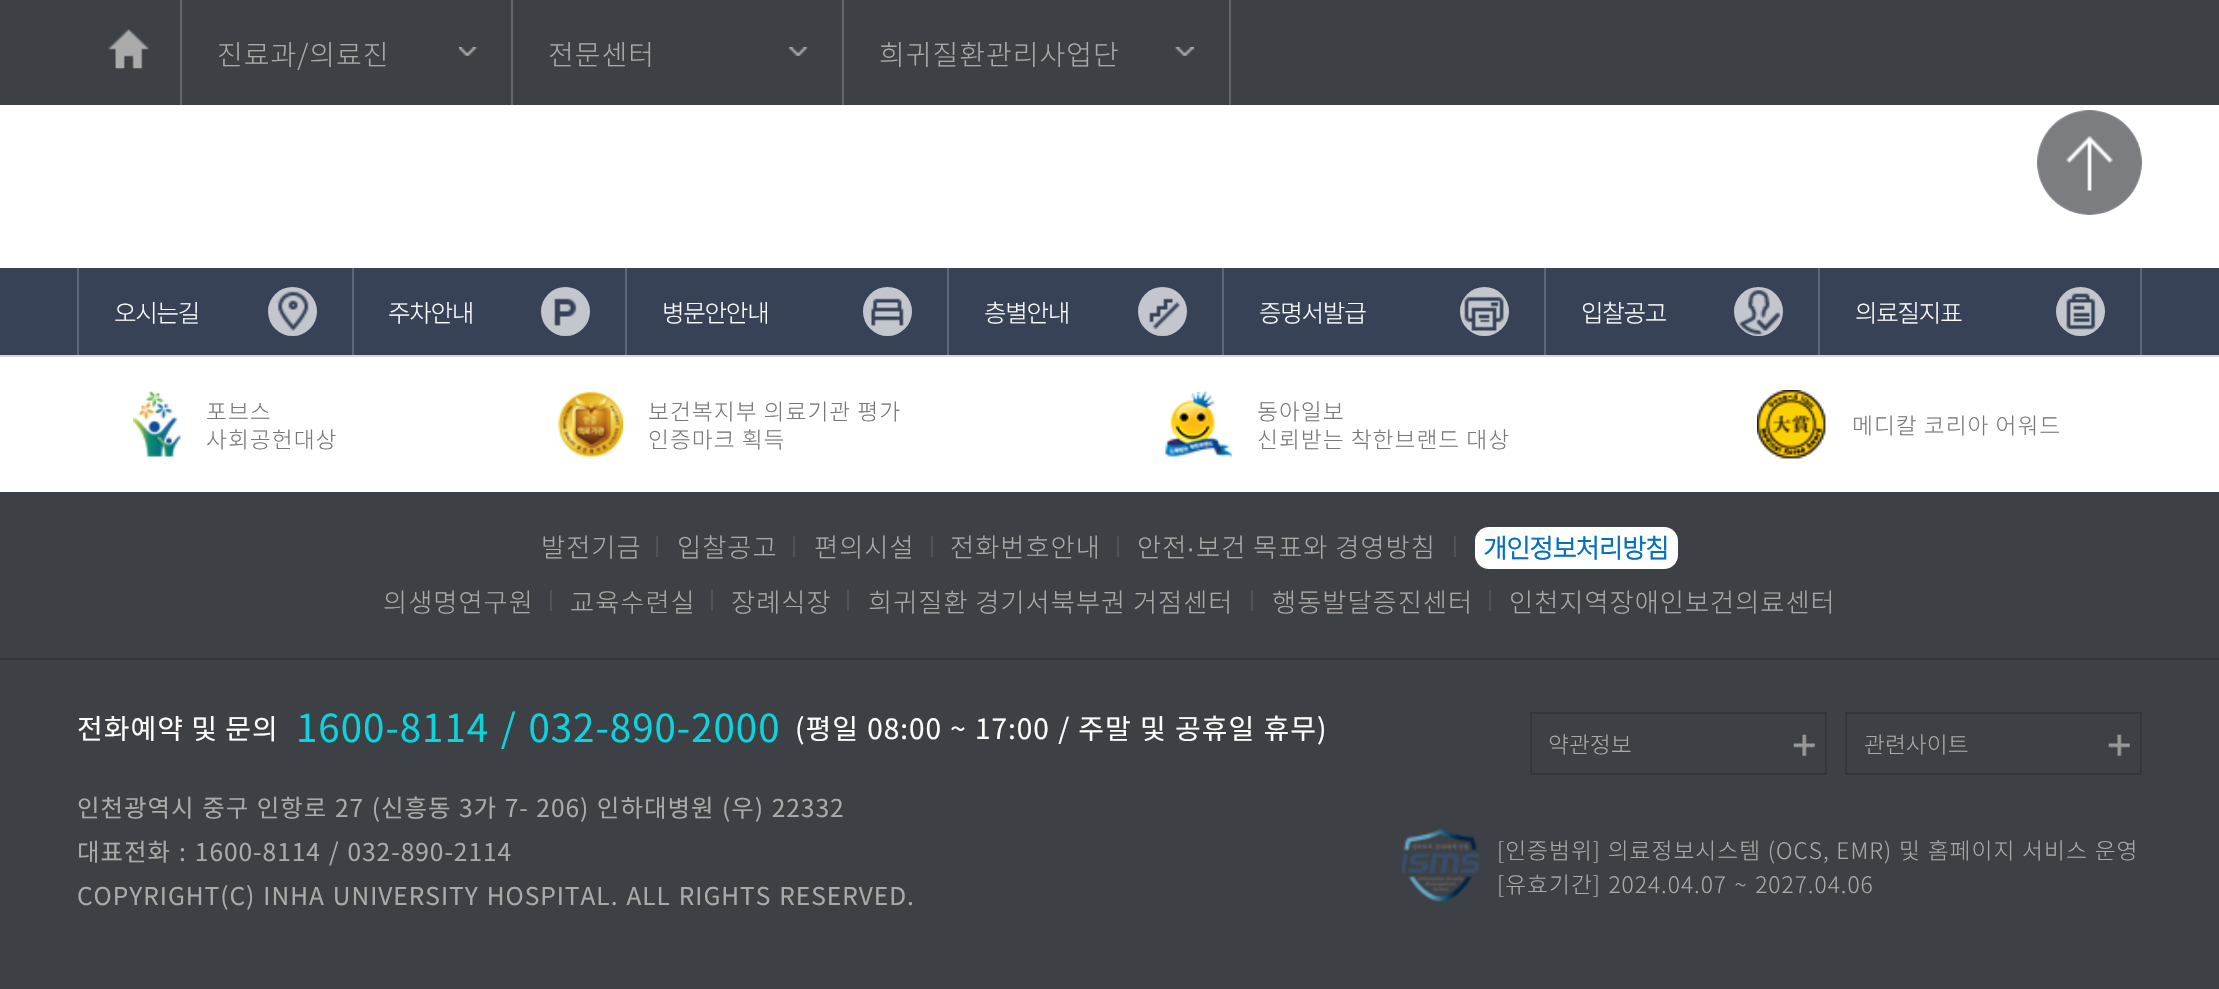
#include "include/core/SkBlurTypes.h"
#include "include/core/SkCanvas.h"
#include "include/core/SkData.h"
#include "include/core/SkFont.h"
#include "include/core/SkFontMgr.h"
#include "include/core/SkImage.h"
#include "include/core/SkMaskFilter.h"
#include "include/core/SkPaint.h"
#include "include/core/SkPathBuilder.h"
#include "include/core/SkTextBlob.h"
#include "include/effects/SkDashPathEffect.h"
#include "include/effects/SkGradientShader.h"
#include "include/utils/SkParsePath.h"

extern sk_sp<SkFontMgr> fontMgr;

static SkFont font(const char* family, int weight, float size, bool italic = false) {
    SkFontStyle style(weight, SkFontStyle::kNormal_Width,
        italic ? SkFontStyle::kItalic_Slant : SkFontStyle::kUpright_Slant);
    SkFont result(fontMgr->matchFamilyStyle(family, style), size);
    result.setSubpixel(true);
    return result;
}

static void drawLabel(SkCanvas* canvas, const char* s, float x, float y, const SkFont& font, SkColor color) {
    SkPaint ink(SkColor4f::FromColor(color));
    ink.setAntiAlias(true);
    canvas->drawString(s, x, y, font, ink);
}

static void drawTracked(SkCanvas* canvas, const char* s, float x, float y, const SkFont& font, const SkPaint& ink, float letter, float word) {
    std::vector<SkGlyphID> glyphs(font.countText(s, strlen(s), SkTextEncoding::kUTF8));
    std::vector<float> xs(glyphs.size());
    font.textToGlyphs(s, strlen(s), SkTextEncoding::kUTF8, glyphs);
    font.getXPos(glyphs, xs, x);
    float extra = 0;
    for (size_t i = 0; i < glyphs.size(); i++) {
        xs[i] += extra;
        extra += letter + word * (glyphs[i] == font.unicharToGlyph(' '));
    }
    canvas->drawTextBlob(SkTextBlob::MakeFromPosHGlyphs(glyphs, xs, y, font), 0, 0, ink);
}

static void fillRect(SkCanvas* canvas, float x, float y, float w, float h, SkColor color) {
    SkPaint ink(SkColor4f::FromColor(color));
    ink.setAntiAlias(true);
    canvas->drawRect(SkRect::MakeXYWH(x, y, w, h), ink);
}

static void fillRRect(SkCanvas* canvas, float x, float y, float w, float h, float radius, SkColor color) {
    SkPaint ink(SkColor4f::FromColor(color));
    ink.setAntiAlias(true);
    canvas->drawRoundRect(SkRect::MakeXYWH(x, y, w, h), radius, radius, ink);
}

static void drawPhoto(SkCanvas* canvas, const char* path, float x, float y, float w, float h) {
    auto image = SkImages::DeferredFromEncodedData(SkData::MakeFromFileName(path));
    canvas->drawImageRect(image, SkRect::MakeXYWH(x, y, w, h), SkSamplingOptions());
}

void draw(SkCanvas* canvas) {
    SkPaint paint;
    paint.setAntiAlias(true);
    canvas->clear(0xFFFFFFFF);
    fillRect(canvas, 0, 0, 2219, 105, 0xFF3D4044);
    fillRect(canvas, 180, 0, 2, 105, 0xFF646669);
    drawPhoto(canvas, "assets/img1.png", 108, 29, 41, 40);
    fillRect(canvas, 511, 0, 2, 105, 0xFF646669);
    SkFont font1 = font("Noto Sans KR", 300, 28);
    paint.setColor(0xFFAAAAAA);
    drawTracked(canvas, "진료과/의료진", 217, 65, font1, paint, 0.98f, 0);
    drawPhoto(canvas, "assets/img2.png", 459, 47, 18, 9);
    fillRect(canvas, 842, 0, 2, 105, 0xFF646669);
    drawTracked(canvas, "전문센터", 548, 65, font1, paint, 0.98f, 0);
    drawPhoto(canvas, "assets/img3.png", 788, 47, 20, 9);
    fillRect(canvas, 1229, 0, 2, 105, 0xFF646669);
    drawTracked(canvas, "희귀질환관리사업단", 879, 65, font1, paint, 0.98f, 0);
    drawPhoto(canvas, "assets/img4.png", 1175, 47, 19, 9);
    fillRect(canvas, 0, 492, 2219, 497, 0xFF3D4044);
    fillRect(canvas, 0, 268, 2219, 87, 0xFF374257);
    paint.setColor(0xFFD8D9DA);
    canvas->drawCircle(2089.5f, 162.5f, 52.5f, paint);
    drawPhoto(canvas, "assets/img5.png", 2037, 110, 105, 105);
    fillRect(canvas, 77, 268, 2, 87, 0xFF5F6879);
    fillRect(canvas, 352, 268, 2, 87, 0xFF5F6879);
    SkFont font2 = font("Noto Sans KR", 300, 24.5f);
    paint.setColor(0xFFFFFFFF);
    drawTracked(canvas, "오시는길", 114, 322, font2, paint, -1.25f, 0);
    paint.setColor(0xFFC3C7CD);
    canvas->drawCircle(292.5f, 311.5f, 24.5f, paint);
    drawPhoto(canvas, "assets/img6.png", 277, 291, 32, 40);
    fillRect(canvas, 625, 268, 2, 87, 0xFF5F6879);
    paint.setColor(0xFFFFFFFF);
    drawTracked(canvas, "주차안내", 388, 322, font2, paint, -1.25f, 0);
    paint.setColor(0xFFC3C7CD);
    canvas->drawCircle(565.5f, 311.5f, 24.5f, paint);
    drawPhoto(canvas, "assets/img7.png", 554, 298, 23, 28);
    fillRect(canvas, 947, 268, 2, 87, 0xFF5F6879);
    paint.setColor(0xFFFFFFFF);
    drawTracked(canvas, "병문안안내", 662, 322, font2, paint, -1.25f, 0);
    paint.setColor(0xFFC3C7CD);
    canvas->drawCircle(887.5f, 311.5f, 24.5f, paint);
    drawPhoto(canvas, "assets/img8.png", 871, 298, 33, 28);
    fillRect(canvas, 1222, 268, 2, 87, 0xFF5F6879);
    paint.setColor(0xFFFFFFFF);
    drawTracked(canvas, "층별안내", 984, 322, font2, paint, -1.25f, 0);
    paint.setColor(0xFFC3C7CD);
    canvas->drawCircle(1162.5f, 311.5f, 24.5f, paint);
    drawPhoto(canvas, "assets/img9.png", 1149, 298, 31, 32);
    fillRect(canvas, 1544, 268, 2, 87, 0xFF5F6879);
    paint.setColor(0xFFFFFFFF);
    drawTracked(canvas, "증명서발급", 1259, 322, font2, paint, -1.25f, 0);
    paint.setColor(0xFFC3C7CD);
    canvas->drawCircle(1484.5f, 311.5f, 24.5f, paint);
    drawPhoto(canvas, "assets/img10.png", 1464, 296, 40, 35);
    fillRect(canvas, 1818, 268, 2, 87, 0xFF5F6879);
    paint.setColor(0xFFFFFFFF);
    drawTracked(canvas, "입찰공고", 1581, 322, font2, paint, -1.25f, 0);
    paint.setColor(0xFFC3C7CD);
    canvas->drawCircle(1758.5f, 311.5f, 24.5f, paint);
    drawPhoto(canvas, "assets/img11.png", 1739, 289, 42, 46);
    fillRect(canvas, 2140, 268, 2, 87, 0xFF5F6879);
    paint.setColor(0xFFFFFFFF);
    drawTracked(canvas, "의료질지표", 1855, 322, font2, paint, -1.25f, 0);
    paint.setColor(0xFFC3C7CD);
    canvas->drawCircle(2080.5f, 311.5f, 24.5f, paint);
    drawPhoto(canvas, "assets/img12.png", 2066, 293, 30, 37);
    fillRect(canvas, 0, 355, 2219, 2, 0xFFD9D9D9);
    drawPhoto(canvas, "assets/img13.png", 133, 391, 48, 66);
    SkFont font3 = font("Noto Sans KR", 300, 22.75f);
    paint.setColor(0xFF777777);
    drawTracked(canvas, "포브스", 206, 420, font3, paint, 0.98f, 0);
    drawTracked(canvas, "사회공헌대상", 206, 448, font3, paint, 0.98f, 0);
    drawPhoto(canvas, "assets/img14.png", 558, 391, 65, 66);
    drawTracked(canvas, "보건복지부 의료기관 평가", 648, 420, font3, paint, 0.98f, 0);
    drawTracked(canvas, "인증마크 획득", 648, 448, font3, paint, 0.98f, 0);
    drawPhoto(canvas, "assets/img15.png", 1165, 391, 67, 66);
    drawTracked(canvas, "동아일보", 1257, 420, font3, paint, 0.98f, 0);
    drawTracked(canvas, "신뢰받는 착한브랜드 대상", 1257, 448, font3, paint, 0.98f, 0);
    drawPhoto(canvas, "assets/img16.png", 1757, 390, 69, 69);
    drawTracked(canvas, "메디칼 코리아 어워드", 1852, 434, font3, paint, 0.98f, 0);
    fillRect(canvas, 0, 658, 2219, 2, 0xFF34363A);
    SkFont font4 = font("Noto Sans KR", 300, 26.25f);
    paint.setColor(0xFFAAAAAA);
    drawTracked(canvas, "발전기금", 541, 557, font4, paint, 0.98f, 0);
    fillRect(canvas, 656, 536, 2, 21, 0xFF515357);
    drawTracked(canvas, "입찰공고", 677, 557, font4, paint, 0.98f, 0);
    fillRect(canvas, 793, 536, 2, 21, 0xFF515357);
    drawTracked(canvas, "편의시설", 814, 557, font4, paint, 0.98f, 0);
    fillRect(canvas, 931, 536, 2, 21, 0xFF515357);
    drawTracked(canvas, "전화번호안내", 950, 557, font4, paint, 0.98f, 0);
    fillRect(canvas, 1117, 536, 2, 21, 0xFF515357);
    drawTracked(canvas, "안전", 1137, 557, font4, paint, 0.98f, 0);
    SkFont font5 = font("Liberation Sans", 400, 26.25f);
    drawTracked(canvas, "∙", 1187, 557, font5, paint, 0.98f, 0);
    drawTracked(canvas, "보건 목표와 경영방침", 1196, 557, font4, paint, 0.98f, 0);
    fillRect(canvas, 1454, 536, 2, 21, 0xFF515357);
    fillRRect(canvas, 1475, 527, 203, 42, 14, 0xFFFFFFFF);
    SkFont font6 = font("Noto Sans KR", 700, 26.25f);
    paint.setColor(0xFF0770BB);
    drawTracked(canvas, "개인정보처리방침", 1483, 558, font6, paint, -1, 0);
    paint.setColor(0xFFAAAAAA);
    drawTracked(canvas, "의생명연구원", 383, 612, font4, paint, 0.98f, 0);
    fillRect(canvas, 550, 590, 2, 21, 0xFF515357);
    drawTracked(canvas, "교육수련실", 570, 612, font4, paint, 0.98f, 0);
    fillRect(canvas, 711, 590, 2, 21, 0xFF515357);
    drawTracked(canvas, "장례식장", 731, 612, font4, paint, 0.98f, 0);
    fillRect(canvas, 847, 590, 2, 21, 0xFF515357);
    drawTracked(canvas, "희귀질환 경기서북부권 거점센터", 868, 612, font4, paint, 0.98f, 0);
    fillRect(canvas, 1251, 590, 2, 21, 0xFF515357);
    drawTracked(canvas, "행동발달증진센터", 1272, 612, font4, paint, 0.98f, 0);
    fillRect(canvas, 1489, 590, 2, 21, 0xFF515357);
    drawTracked(canvas, "인천지역장애인보건의료센터", 1509, 612, font4, paint, 0.98f, 0);
    SkFont font7 = font("Noto Sans KR", 400, 28);
    paint.setColor(0xFFFFFFFF);
    drawTracked(canvas, "전화예약 및 문의", 77, 739, font7, paint, 0.98f, 0);
    SkFont font8 = font("Noto Sans KR", 400, 38.5f);
    paint.setColor(0xFF0CD4DD);
    drawTracked(canvas, "1600-8114 / 032-890-2000", 296, 742, font8, paint, 0.98f, 2);
    paint.setColor(0xFFFFFFFF);
    drawTracked(canvas, "(평일 08:00 ~ 17:00 / 주말 및 공휴일 휴무)", 795, 739, font7, paint, 0.98f, 1);
    SkFont font9 = font("Noto Sans KR", 400, 24.5f);
    paint.setColor(0xFFAAAAAA);
    drawTracked(canvas, "인천광역시 중구 인항로 27 (신흥동 3가 7- 206) 인하대병원 (우) 22332", 77, 817, font9, paint, 0.98f, 1.1f);
    drawTracked(canvas, "대표전화 : 1600-8114 / 032-890-2114", 77, 861, font9, paint, 0.98f, 1.5f);
    drawTracked(canvas, "COPYRIGHT(C) INHA UNIVERSITY HOSPITAL. ALL RIGHTS RESERVED.", 77, 905, font9, paint, 0.98f, 1.5f);
    paint.setStroke(true);
    paint.setStrokeWidth(2);
    paint.setColor(0xFF34363A);
    canvas->drawRect(SkRect::MakeXYWH(1531, 713, 295, 61), paint);
    drawLabel(canvas, "약관정보", 1548, 753, font3, 0xFFAAAAAA);
    drawPhoto(canvas, "assets/img17.png", 1793, 734, 22, 22);
    canvas->drawRect(SkRect::MakeXYWH(1846, 713, 295, 61), paint);
    drawLabel(canvas, "관련사이트", 1864, 753, font3, 0xFFAAAAAA);
    drawPhoto(canvas, "assets/img17.png", 2108, 734, 22, 22);
    drawPhoto(canvas, "assets/img18.png", 1401, 829, 78, 73);
    paint.setStroke(false);
    paint.setColor(0xFFAAAAAA);
    drawTracked(canvas, "[인증범위] 의료정보시스템 (OCS, EMR) 및 홈페이지 서비스 운영", 1497, 859, font3, paint, 0.98f, 0.75f);
    drawTracked(canvas, "[유효기간] 2024.04.07 ~ 2027.04.06", 1497, 893, font3, paint, 0.98f, 1.5f);
}
